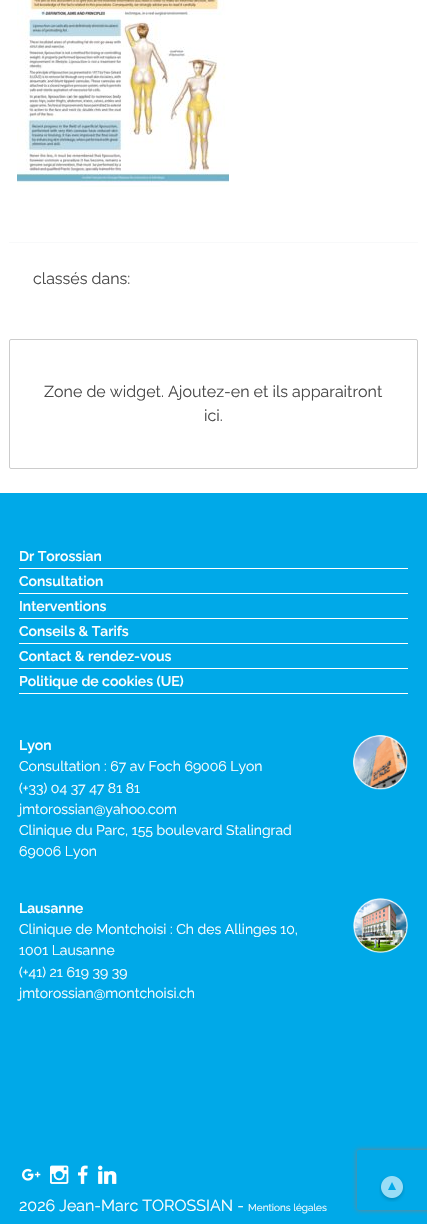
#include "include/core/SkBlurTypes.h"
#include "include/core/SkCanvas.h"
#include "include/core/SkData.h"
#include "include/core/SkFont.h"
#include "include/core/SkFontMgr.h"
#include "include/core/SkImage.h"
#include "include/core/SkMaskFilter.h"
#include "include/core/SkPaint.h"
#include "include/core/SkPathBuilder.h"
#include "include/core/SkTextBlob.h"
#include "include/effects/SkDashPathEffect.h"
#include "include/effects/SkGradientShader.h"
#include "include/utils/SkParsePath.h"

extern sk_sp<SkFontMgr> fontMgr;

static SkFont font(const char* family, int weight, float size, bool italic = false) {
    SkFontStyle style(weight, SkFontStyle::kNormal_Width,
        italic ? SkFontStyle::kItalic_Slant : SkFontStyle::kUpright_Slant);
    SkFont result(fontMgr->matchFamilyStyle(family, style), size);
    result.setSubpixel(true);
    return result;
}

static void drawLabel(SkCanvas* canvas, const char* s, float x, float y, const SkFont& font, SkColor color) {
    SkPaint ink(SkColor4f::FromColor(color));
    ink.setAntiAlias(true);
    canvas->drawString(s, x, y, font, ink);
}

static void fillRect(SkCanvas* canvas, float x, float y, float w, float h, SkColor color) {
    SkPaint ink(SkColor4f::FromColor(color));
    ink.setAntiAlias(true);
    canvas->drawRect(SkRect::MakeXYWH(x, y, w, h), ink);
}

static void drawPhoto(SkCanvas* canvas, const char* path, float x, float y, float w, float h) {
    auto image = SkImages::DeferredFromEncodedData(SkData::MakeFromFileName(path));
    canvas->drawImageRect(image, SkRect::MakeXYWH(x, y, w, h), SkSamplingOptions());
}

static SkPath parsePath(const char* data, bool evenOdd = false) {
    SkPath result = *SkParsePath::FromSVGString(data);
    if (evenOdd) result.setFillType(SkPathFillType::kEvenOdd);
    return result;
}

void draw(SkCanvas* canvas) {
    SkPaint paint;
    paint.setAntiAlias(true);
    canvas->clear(0xFFFFFFFF);
    drawPhoto(canvas, "assets/img1.png", 17, 0, 212, 187);
    fillRect(canvas, 9, 242, 409, 1, 0xFFF8F9FA);
    SkFont font1 = font("Raleway", 400, 16);
    drawLabel(canvas, "classés dans:", 33, 284, font1, 0xFF4A4A4A);
    paint.setStroke(true);
    paint.setStrokeWidth(1);
    paint.setColor(0xFFCCCCCC);
    canvas->drawRoundRect(SkRect::MakeXYWH(9.5f, 339.5f, 408, 129), 1.5f, 1.5f, paint);
    drawLabel(canvas, "Zone de widget. Ajoutez-en et ils apparaitront", 44, 397, font1, 0xFF4A4A4A);
    drawLabel(canvas, "ici.", 204, 421, font1, 0xFF4A4A4A);
    fillRect(canvas, 0, 493, 427, 731, 0xFF00A9E8);
    fillRect(canvas, 19, 568, 389, 1, 0xFFFFFFFF);
    SkFont font2 = font("Raleway", 600, 14);
    drawLabel(canvas, "Dr Torossian", 19, 561, font2, 0xFFFFFFFF);
    fillRect(canvas, 19, 593, 389, 1, 0xFFFFFFFF);
    drawLabel(canvas, "Consultation", 19, 586, font2, 0xFFFFFFFF);
    fillRect(canvas, 19, 618, 389, 1, 0xFFFFFFFF);
    drawLabel(canvas, "Interventions", 19, 611, font2, 0xFFFFFFFF);
    fillRect(canvas, 19, 643, 389, 1, 0xFFFFFFFF);
    drawLabel(canvas, "Conseils & Tarifs", 19, 636, font2, 0xFFFFFFFF);
    fillRect(canvas, 19, 668, 389, 1, 0xFFFFFFFF);
    drawLabel(canvas, "Contact & rendez-vous", 19, 661, font2, 0xFFFFFFFF);
    fillRect(canvas, 19, 693, 389, 1, 0xFFFFFFFF);
    drawLabel(canvas, "Politique de cookies (UE)", 19, 686, font2, 0xFFFFFFFF);
    drawLabel(canvas, "Lyon", 19, 750, font2, 0xFFFFFFFF);
    SkFont font3 = font("Raleway", 400, 14);
    drawLabel(canvas, "Consultation : 67 av Foch 69006 Lyon", 19, 771, font3, 0xFFFFFFFF);
    drawPhoto(canvas, "assets/img2.png", 353, 735, 55, 55);
    drawLabel(canvas, "(+33) 04 37 47 81 81", 19, 793, font3, 0xFFFFFFFF);
    drawLabel(canvas, "jmtorossian@yahoo.com", 19, 814, font3, 0xFFFFFFFF);
    drawLabel(canvas, "Clinique du Parc, 155 boulevard Stalingrad", 19, 835, font3, 0xFFFFFFFF);
    drawLabel(canvas, "69006 Lyon", 19, 856, font3, 0xFFFFFFFF);
    drawLabel(canvas, "Lausanne", 19, 913, font2, 0xFFFFFFFF);
    drawLabel(canvas, "Clinique de Montchoisi : Ch des Allinges 10,", 19, 934, font3, 0xFFFFFFFF);
    drawLabel(canvas, "1001 Lausanne", 19, 955, font3, 0xFFFFFFFF);
    drawPhoto(canvas, "assets/img3.png", 353, 898, 55, 55);
    drawLabel(canvas, "(+41) 21 619 39 39", 19, 977, font3, 0xFFFFFFFF);
    drawLabel(canvas, "jmtorossian@montchoisi.ch", 19, 998, font3, 0xFFFFFFFF);
    drawPhoto(canvas, "assets/img4.png", 22, 1168, 19, 13);
    drawPhoto(canvas, "assets/img5.png", 50, 1165, 19, 19);
    drawPhoto(canvas, "assets/img6.png", 78, 1165, 10, 19);
    drawPhoto(canvas, "assets/img7.png", 98, 1165, 19, 19);
    drawLabel(canvas, "2026 Jean-Marc TOROSSIAN -", 19, 1211, font1, 0xFFFFFFFF);
    SkFont font4 = font("Raleway", 400, 10);
    drawLabel(canvas, "Mentions légales", 248, 1211, font4, 0xFFFFFFFF);
    canvas->save();
    canvas->clipPath(parsePath("M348 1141H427V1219H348ZM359 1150H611C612 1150 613 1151 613 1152V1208C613 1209 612 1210 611 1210H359C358 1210 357 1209 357 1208V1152C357 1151 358 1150 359 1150Z", true), true);
    paint.setStroke(false);
    paint.setColor(0xFF808080);
    paint.setMaskFilter(SkMaskFilter::MakeBlur(kNormal_SkBlurStyle, 2.5f));
    canvas->drawRoundRect(SkRect::MakeXYWH(357, 1150, 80, 60), 2, 2, paint);
    paint.setMaskFilter(nullptr);
    canvas->restore();
    drawPhoto(canvas, "assets/img8.png", 379, 1176, 26, 26);
}
